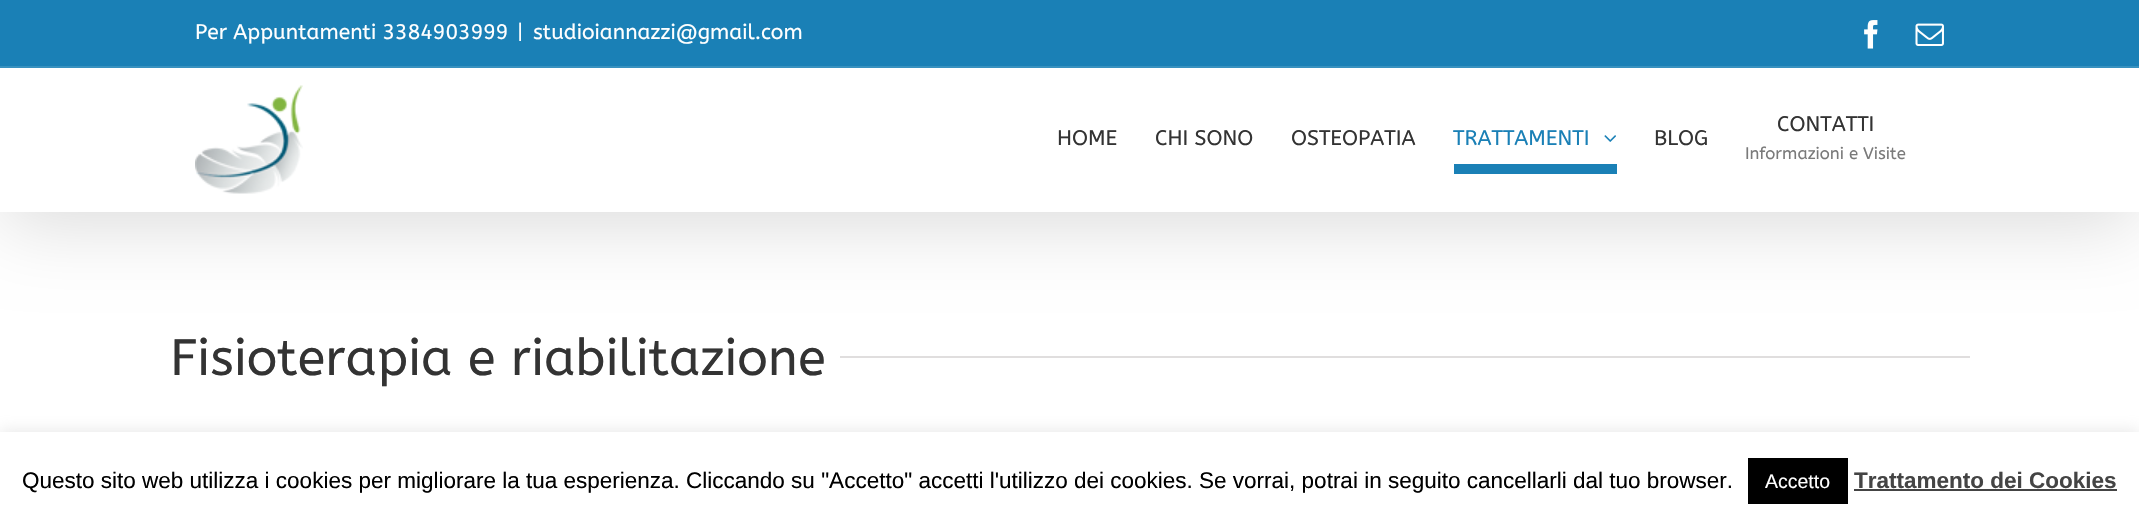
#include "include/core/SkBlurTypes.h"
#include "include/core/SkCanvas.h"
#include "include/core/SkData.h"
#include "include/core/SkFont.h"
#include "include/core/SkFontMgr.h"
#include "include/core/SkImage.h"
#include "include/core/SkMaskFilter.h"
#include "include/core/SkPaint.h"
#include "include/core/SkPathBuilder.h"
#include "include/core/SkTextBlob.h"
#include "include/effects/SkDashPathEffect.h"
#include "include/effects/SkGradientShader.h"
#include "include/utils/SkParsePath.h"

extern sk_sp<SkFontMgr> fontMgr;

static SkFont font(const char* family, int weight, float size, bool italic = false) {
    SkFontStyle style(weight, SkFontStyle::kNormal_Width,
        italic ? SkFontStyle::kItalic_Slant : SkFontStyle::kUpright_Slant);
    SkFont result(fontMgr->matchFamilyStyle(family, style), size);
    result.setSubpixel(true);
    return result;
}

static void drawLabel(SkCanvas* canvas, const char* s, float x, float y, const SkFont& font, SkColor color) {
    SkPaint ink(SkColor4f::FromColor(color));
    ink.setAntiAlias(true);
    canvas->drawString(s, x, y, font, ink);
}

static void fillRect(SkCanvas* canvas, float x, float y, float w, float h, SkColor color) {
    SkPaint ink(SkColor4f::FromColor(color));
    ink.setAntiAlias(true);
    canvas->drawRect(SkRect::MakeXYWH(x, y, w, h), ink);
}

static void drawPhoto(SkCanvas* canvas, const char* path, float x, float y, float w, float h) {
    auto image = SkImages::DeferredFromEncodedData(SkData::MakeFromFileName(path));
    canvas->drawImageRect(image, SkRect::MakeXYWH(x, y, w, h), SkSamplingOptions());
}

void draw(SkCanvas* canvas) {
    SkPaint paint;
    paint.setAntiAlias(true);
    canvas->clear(0xFFFFFFFF);
    paint.setColor(0x24000000);
    paint.setMaskFilter(SkMaskFilter::MakeBlur(kNormal_SkBlurStyle, 37.5f));
    canvas->drawRect(SkRect::MakeXYWH(3, 18, 2133, 206), paint);
    paint.setMaskFilter(nullptr);
    fillRect(canvas, 0, 0, 2139, 66, 0xFF1A80B6);
    fillRect(canvas, 0, 66, 2139, 2, 0xFF3891BF);
    SkFont font1 = font("ABeeZee", 400, 21);
    drawLabel(canvas, "Per Appuntamenti 3384903999", 195, 39, font1, 0xFFFFFFFF);
    drawLabel(canvas, "|", 517, 39, font1, 0xFFFFFFFF);
    drawLabel(canvas, "studioiannazzi@gmail.com", 533, 39, font1, 0xFFFFFFFF);
    drawPhoto(canvas, "assets/img1.png", 1864, 20, 14, 29);
    drawPhoto(canvas, "assets/img2.png", 1915, 23, 29, 23);
    fillRect(canvas, 0, 68, 2139, 144, 0xFFFFFFFF);
    drawPhoto(canvas, "assets/img3.png", 195, 85, 108, 109);
    drawLabel(canvas, "HOME", 1057, 145, font1, 0xFF333333);
    drawLabel(canvas, "CHI SONO", 1155, 145, font1, 0xFF333333);
    drawLabel(canvas, "OSTEOPATIA", 1291, 145, font1, 0xFF333333);
    drawLabel(canvas, "TRATTAMENTI", 1453, 145, font1, 0xFF1A80B6);
    drawPhoto(canvas, "assets/img4.png", 1604, 135, 12, 7);
    fillRect(canvas, 1454, 164, 163, 10, 0xFF1A80B6);
    drawLabel(canvas, "BLOG", 1654, 145, font1, 0xFF333333);
    drawLabel(canvas, "CONTATTI", 1777, 131, font1, 0xFF333333);
    SkFont font2 = font("ABeeZee", 400, 16.75f);
    drawLabel(canvas, "Informazioni e Visite", 1745, 159, font2, 0xFF7A7A7A);
    SkFont font3 = font("ABeeZee", 400, 51);
    drawLabel(canvas, "Fisioterapia e riabilitazione", 170, 375, font3, 0xFF333333);
    fillRect(canvas, 840, 356, 1130, 2, 0xFFE0DEDE);
    paint.setColor(0x4DACABAB);
    paint.setMaskFilter(SkMaskFilter::MakeBlur(kNormal_SkBlurStyle, 7.5f));
    canvas->drawRect(SkRect::MakeXYWH(0, 431, 2139, 90), paint);
    paint.setMaskFilter(nullptr);
    fillRect(canvas, 0, 432, 2139, 89, 0xFFFFFFFF);
    SkFont font4 = font("Liberation Sans", 400, 22.5f);
    drawLabel(canvas, "Questo sito web utilizza i cookies per migliorare la tua esperienza. Cliccando su \"Accetto\" accetti l'utilizzo dei cookies. Se vorrai, potrai in seguito cancellarli dal tuo browser.", 22, 488, font4, 0xFF000000);
    fillRect(canvas, 1748, 458, 100, 46, 0xFF000000);
    SkFont font5 = font("Liberation Sans", 400, 19.5f);
    drawLabel(canvas, "Accetto", 1765, 488, font5, 0xFFFFFFFF);
    SkFont font6 = font("Liberation Sans", 700, 22.5f);
    drawLabel(canvas, "Trattamento dei Cookies", 1854, 488, font6, 0xFF444444);
    fillRect(canvas, 1854, 489, 263, 2, 0xFF444444);
}
